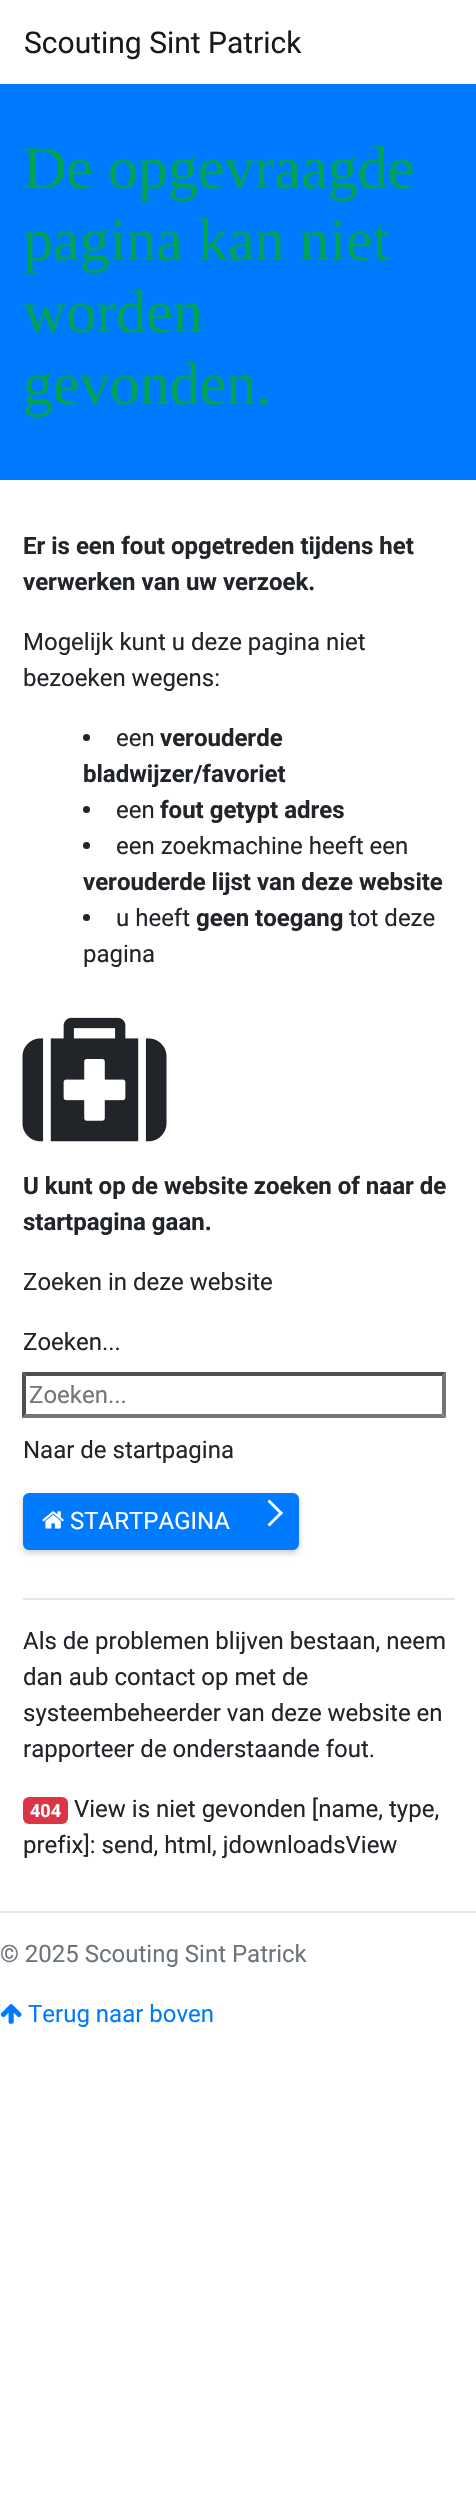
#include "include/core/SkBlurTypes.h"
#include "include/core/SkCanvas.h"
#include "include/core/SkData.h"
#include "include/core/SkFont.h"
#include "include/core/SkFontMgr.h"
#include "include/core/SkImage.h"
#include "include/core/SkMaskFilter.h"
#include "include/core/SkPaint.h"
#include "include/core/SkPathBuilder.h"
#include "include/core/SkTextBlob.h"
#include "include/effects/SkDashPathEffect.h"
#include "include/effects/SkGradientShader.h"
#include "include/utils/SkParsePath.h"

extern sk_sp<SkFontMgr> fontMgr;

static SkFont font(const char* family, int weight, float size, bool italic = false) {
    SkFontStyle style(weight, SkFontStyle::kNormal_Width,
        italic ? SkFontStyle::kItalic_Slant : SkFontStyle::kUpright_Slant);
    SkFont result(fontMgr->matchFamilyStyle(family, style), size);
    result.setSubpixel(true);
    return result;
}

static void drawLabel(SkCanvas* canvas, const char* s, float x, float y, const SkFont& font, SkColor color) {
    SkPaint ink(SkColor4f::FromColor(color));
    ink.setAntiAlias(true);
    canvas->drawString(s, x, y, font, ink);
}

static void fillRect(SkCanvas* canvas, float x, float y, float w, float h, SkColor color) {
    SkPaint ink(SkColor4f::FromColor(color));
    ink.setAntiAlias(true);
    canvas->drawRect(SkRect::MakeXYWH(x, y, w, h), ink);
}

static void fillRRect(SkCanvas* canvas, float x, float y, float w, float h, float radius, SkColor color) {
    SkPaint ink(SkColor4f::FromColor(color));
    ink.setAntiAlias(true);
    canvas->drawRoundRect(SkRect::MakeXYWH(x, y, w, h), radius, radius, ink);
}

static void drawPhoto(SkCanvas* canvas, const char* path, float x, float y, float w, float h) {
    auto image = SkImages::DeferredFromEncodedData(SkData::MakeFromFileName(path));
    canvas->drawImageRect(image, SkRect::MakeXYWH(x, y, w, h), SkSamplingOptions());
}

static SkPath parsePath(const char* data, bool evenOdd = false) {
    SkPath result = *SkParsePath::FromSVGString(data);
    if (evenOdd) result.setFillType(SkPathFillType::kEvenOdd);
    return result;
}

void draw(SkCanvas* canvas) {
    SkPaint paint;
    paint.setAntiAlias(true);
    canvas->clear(0xFFFFFFFF);
    SkFont font1 = font("Roboto", 400, 30);
    drawLabel(canvas, "Scouting Sint Patrick", 24, 53, font1, 0xFF1A1A1A);
    fillRect(canvas, 0, 84, 476, 396, 0xFF007BFF);
    SkFont font2 = font("Liberation Serif", 400, 60);
    drawLabel(canvas, "De opgevraagde", 23, 188, font2, 0xFF00A551);
    drawLabel(canvas, "pagina kan niet", 23, 260, font2, 0xFF00A551);
    drawLabel(canvas, "worden", 23, 332, font2, 0xFF00A551);
    drawLabel(canvas, "gevonden.", 23, 404, font2, 0xFF00A551);
    SkFont font3 = font("Roboto", 700, 24);
    drawLabel(canvas, "Er is een fout opgetreden tijdens het", 23, 554, font3, 0xFF212529);
    drawLabel(canvas, "verwerken van uw verzoek.", 23, 590, font3, 0xFF212529);
    SkFont font4 = font("Roboto", 400, 24);
    drawLabel(canvas, "Mogelijk kunt u deze pagina niet", 23, 650, font4, 0xFF212529);
    drawLabel(canvas, "bezoeken wegens:", 23, 686, font4, 0xFF212529);
    paint.setColor(0xFF212529);
    canvas->drawCircle(86.5f, 737.5f, 3.5f, paint);
    drawLabel(canvas, "een", 116, 746, font4, 0xFF212529);
    drawLabel(canvas, "verouderde", 160, 746, font3, 0xFF212529);
    drawLabel(canvas, "bladwijzer/favoriet", 83, 782, font3, 0xFF212529);
    canvas->drawCircle(86.5f, 809.5f, 3.5f, paint);
    drawLabel(canvas, "een", 116, 818, font4, 0xFF212529);
    drawLabel(canvas, "fout getypt adres", 160, 818, font3, 0xFF212529);
    canvas->drawCircle(86.5f, 845.5f, 3.5f, paint);
    drawLabel(canvas, "een zoekmachine heeft een", 116, 854, font4, 0xFF212529);
    drawLabel(canvas, "verouderde lijst van deze website", 83, 890, font3, 0xFF212529);
    canvas->drawCircle(86.5f, 917.5f, 3.5f, paint);
    drawLabel(canvas, "u heeft", 116, 926, font4, 0xFF212529);
    drawLabel(canvas, "geen toegang", 196, 926, font3, 0xFF212529);
    drawLabel(canvas, "tot deze", 349, 926, font4, 0xFF212529);
    drawLabel(canvas, "pagina", 83, 962, font4, 0xFF212529);
    drawPhoto(canvas, "assets/img1.png", 22, 1017, 145, 125);
    drawLabel(canvas, "U kunt op de website zoeken of naar de", 23, 1194, font3, 0xFF212529);
    drawLabel(canvas, "startpagina gaan.", 23, 1230, font3, 0xFF212529);
    drawLabel(canvas, "Zoeken in deze website", 23, 1290, font4, 0xFF212529);
    drawLabel(canvas, "Zoeken...", 23, 1350, font4, 0xFF212529);
    paint.setColor(0xFF4F4F4F);
    canvas->drawPath(parsePath("M22 1372H446L442 1376H26Z"), paint);
    paint.setColor(0xFF767676);
    canvas->drawPath(parsePath("M446 1372V1418L442 1414V1376Z"), paint);
    canvas->drawPath(parsePath("M446 1418H22L26 1414H442Z"), paint);
    paint.setColor(0xFF4F4F4F);
    canvas->drawPath(parsePath("M22 1418V1372L26 1376V1414Z"), paint);
    drawLabel(canvas, "Zoeken...", 29, 1403, font4, 0xFF757575);
    drawLabel(canvas, "Naar de startpagina", 23, 1458, font4, 0xFF212529);
    paint.setColor(0x33000000);
    paint.setMaskFilter(SkMaskFilter::MakeBlur(kNormal_SkBlurStyle, 3));
    canvas->drawRoundRect(SkRect::MakeXYWH(23, 1496, 276, 57), 6, 6, paint);
    paint.setMaskFilter(nullptr);
    paint.setColor(0xFF007BFF);
    canvas->drawRoundRect(SkRect::MakeXYWH(24, 1494, 274, 55), 5, 5, paint);
    paint.setStroke(true);
    paint.setStrokeWidth(2);
    canvas->drawRoundRect(SkRect::MakeXYWH(24, 1494, 274, 55), 5, 5, paint);
    drawPhoto(canvas, "assets/img2.png", 42, 1511, 22, 18);
    drawLabel(canvas, "STARTPAGINA", 70, 1529, font4, 0xFFFFFFFF);
    paint.setStroke(false);
    paint.setColor(0xFFFFFFFF);
    canvas->drawPath(parsePath("M269.5 1499.5L283 1513L281 1515L267.5 1501.5Z"), paint);
    canvas->drawPath(parsePath("M281 1511L283 1513L269.5 1526.5L267.5 1524.5Z"), paint);
    fillRect(canvas, 23, 1598, 432, 2, 0xFFE6E6E6);
    drawLabel(canvas, "Als de problemen blijven bestaan, neem", 23, 1649, font4, 0xFF212529);
    drawLabel(canvas, "dan aub contact op met de", 23, 1685, font4, 0xFF212529);
    drawLabel(canvas, "systeembeheerder van deze website en", 23, 1721, font4, 0xFF212529);
    drawLabel(canvas, "rapporteer de onderstaande fout.", 23, 1757, font4, 0xFF212529);
    fillRRect(canvas, 23, 1797, 45, 27, 6, 0xFFDC3545);
    SkFont font5 = font("Roboto", 700, 18);
    drawLabel(canvas, "404", 30, 1817, font5, 0xFFFFFFFF);
    drawLabel(canvas, "View is niet gevonden [name, type,", 74, 1817, font4, 0xFF212529);
    drawLabel(canvas, "prefix]: send, html, jdownloadsView", 23, 1853, font4, 0xFF212529);
    fillRect(canvas, 0, 1911, 476, 2, 0xFFE6E6E6);
    drawLabel(canvas, "© 2025 Scouting Sint Patrick", 0, 1962, font4, 0xFF6C757D);
    drawPhoto(canvas, "assets/img3.png", 0, 2004, 22, 20);
    drawLabel(canvas, "Terug naar boven", 28, 2022, font4, 0xFF007BFF);
}
